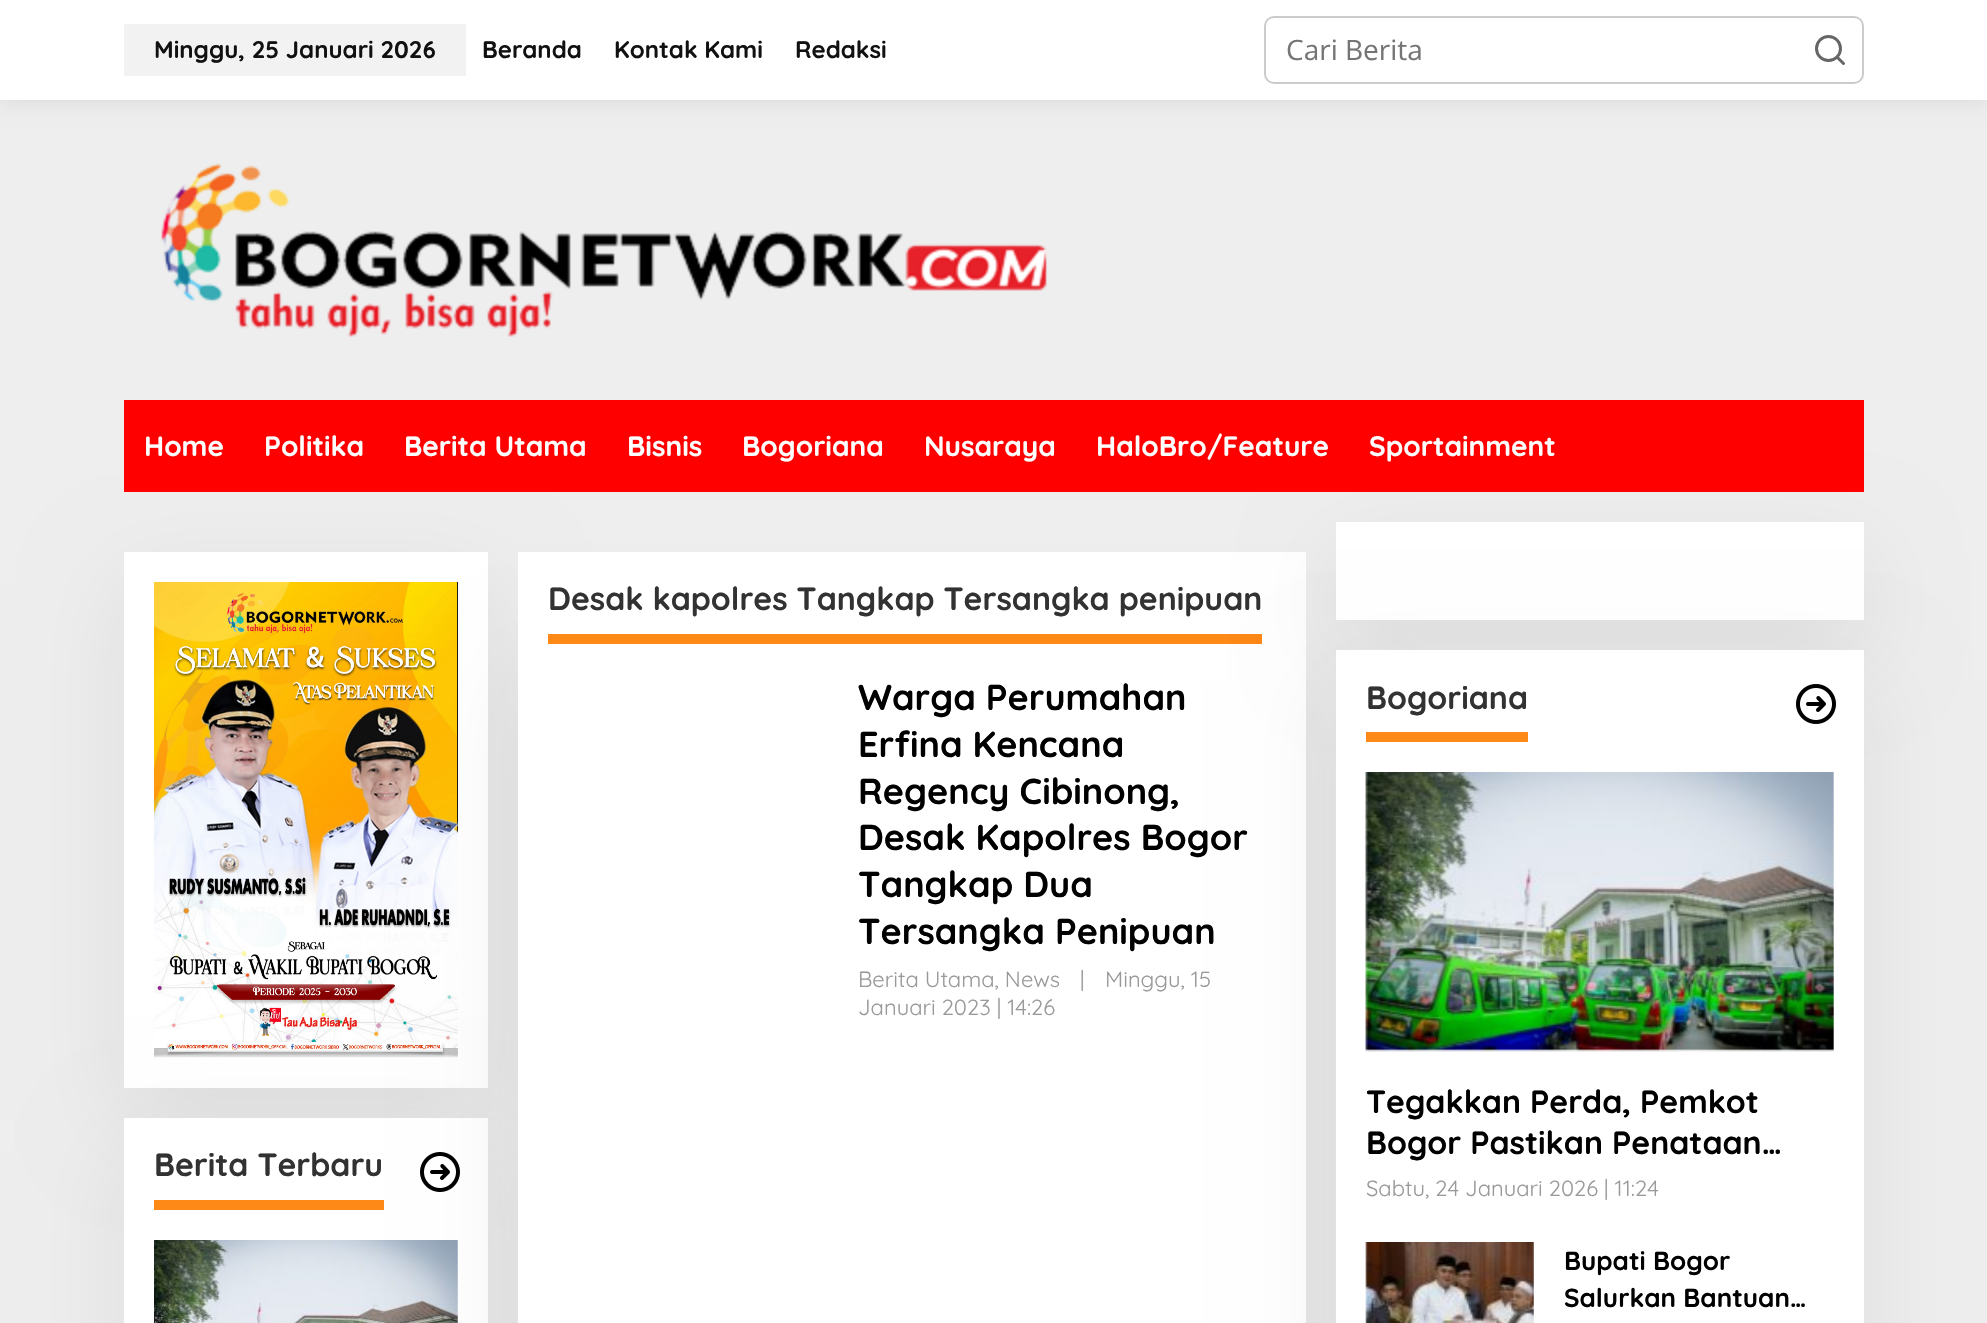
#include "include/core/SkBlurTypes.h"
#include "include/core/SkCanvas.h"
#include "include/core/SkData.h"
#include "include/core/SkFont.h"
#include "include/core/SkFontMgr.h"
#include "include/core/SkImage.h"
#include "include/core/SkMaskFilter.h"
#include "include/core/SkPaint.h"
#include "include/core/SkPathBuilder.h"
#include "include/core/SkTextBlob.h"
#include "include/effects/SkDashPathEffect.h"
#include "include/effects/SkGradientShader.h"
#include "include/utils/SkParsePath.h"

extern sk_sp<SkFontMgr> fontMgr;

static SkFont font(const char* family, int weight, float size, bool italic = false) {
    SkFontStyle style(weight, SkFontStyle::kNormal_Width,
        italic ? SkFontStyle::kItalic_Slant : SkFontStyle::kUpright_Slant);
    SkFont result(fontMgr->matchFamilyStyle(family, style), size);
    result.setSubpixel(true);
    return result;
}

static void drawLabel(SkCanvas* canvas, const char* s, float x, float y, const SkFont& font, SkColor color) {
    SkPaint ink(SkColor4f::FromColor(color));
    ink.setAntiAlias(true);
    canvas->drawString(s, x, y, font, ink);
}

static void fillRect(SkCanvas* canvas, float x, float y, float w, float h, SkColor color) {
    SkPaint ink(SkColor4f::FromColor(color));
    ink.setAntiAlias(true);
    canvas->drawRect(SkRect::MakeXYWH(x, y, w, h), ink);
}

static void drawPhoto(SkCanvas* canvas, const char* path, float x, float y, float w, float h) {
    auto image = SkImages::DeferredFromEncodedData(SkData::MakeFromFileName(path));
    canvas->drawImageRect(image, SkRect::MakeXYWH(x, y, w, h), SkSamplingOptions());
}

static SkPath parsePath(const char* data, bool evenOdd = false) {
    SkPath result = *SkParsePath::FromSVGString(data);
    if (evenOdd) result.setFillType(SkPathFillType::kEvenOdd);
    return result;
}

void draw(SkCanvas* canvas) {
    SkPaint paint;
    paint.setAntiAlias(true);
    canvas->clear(0xFFEEEEEE);
    paint.setColor(0x1A000000);
    paint.setMaskFilter(SkMaskFilter::MakeBlur(kNormal_SkBlurStyle, 10));
    canvas->drawRect(SkRect::MakeXYWH(0, 0, 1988, 100), paint);
    paint.setMaskFilter(nullptr);
    fillRect(canvas, 0, 0, 1987, 100, 0xFFFFFFFF);
    fillRect(canvas, 124, 24, 342, 52, 0xFFF2F2F2);
    SkFont font1 = font("Quicksand", 700, 24);
    drawLabel(canvas, "Minggu, 25 Januari 2026", 154, 58, font1, 0xFF111111);
    drawLabel(canvas, "Beranda", 482, 58, font1, 0xFF111111);
    drawLabel(canvas, "Kontak Kami", 614, 58, font1, 0xFF111111);
    drawLabel(canvas, "Redaksi", 795, 58, font1, 0xFF111111);
    paint.setStroke(true);
    paint.setStrokeWidth(2);
    paint.setColor(0xFFCCCCCC);
    canvas->drawRoundRect(SkRect::MakeXYWH(1265, 17, 598, 66), 9, 9, paint);
    SkFont font2 = font("Open Sans", 400, 28);
    drawLabel(canvas, "Cari Berita", 1286, 60, font2, 0xFF757575);
    paint.setStrokeWidth(3);
    paint.setColor(0xFF666666);
    canvas->drawCircle(1828.5f, 48.5f, 12, paint);
    paint.setStrokeCap(SkPaint::kRound_Cap);
    paint.setStrokeJoin(SkPaint::kRound_Join);
    canvas->drawPath(parsePath("M1843.5 63.5L1837 57"), paint);
    drawPhoto(canvas, "assets/img1.png", 161, 163, 886, 174);
    fillRect(canvas, 124, 400, 1740, 92, 0xFFFF0000);
    SkFont font3 = font("Quicksand", 700, 28);
    drawLabel(canvas, "Home", 144, 456, font3, 0xFFFFFFFF);
    drawLabel(canvas, "Politika", 264, 456, font3, 0xFFFFFFFF);
    drawLabel(canvas, "Berita Utama", 404, 456, font3, 0xFFFFFFFF);
    drawLabel(canvas, "Bisnis", 627, 456, font3, 0xFFFFFFFF);
    drawLabel(canvas, "Bogoriana", 742, 456, font3, 0xFFFFFFFF);
    drawLabel(canvas, "Nusaraya", 924, 456, font3, 0xFFFFFFFF);
    drawLabel(canvas, "HaloBro/Feature", 1096, 456, font3, 0xFFFFFFFF);
    drawLabel(canvas, "Sportainment", 1369, 456, font3, 0xFFFFFFFF);
    paint.setStroke(false);
    paint.setColor(0x12000000);
    paint.setMaskFilter(SkMaskFilter::MakeBlur(kNormal_SkBlurStyle, 45));
    canvas->drawRect(SkRect::MakeXYWH(124, 584, 364, 536), paint);
    paint.setMaskFilter(nullptr);
    fillRect(canvas, 124, 552, 364, 536, 0xFFFFFFFF);
    paint.setMaskFilter(SkMaskFilter::MakeBlur(kNormal_SkBlurStyle, 45));
    canvas->drawRect(SkRect::MakeXYWH(124, 1150, 364, 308), paint);
    paint.setMaskFilter(nullptr);
    drawPhoto(canvas, "assets/img2.png", 154, 582, 304, 476);
    fillRect(canvas, 124, 1118, 364, 205, 0xFFFFFFFF);
    fillRect(canvas, 154, 1200, 230, 10, 0xFFFE8917);
    drawPhoto(canvas, "assets/img3.png", 420, 1152, 40, 40);
    drawPhoto(canvas, "assets/img4.png", 154, 1240, 304, 83);
    paint.setMaskFilter(SkMaskFilter::MakeBlur(kNormal_SkBlurStyle, 45));
    canvas->drawRect(SkRect::MakeXYWH(518, 676, 788, 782), paint);
    paint.setMaskFilter(nullptr);
    fillRect(canvas, 518, 552, 788, 771, 0xFFFFFFFF);
    fillRect(canvas, 548, 634, 714, 10, 0xFFFE8917);
    SkFont font4 = font("Quicksand", 700, 32);
    drawLabel(canvas, "Desak kapolres Tangkap Tersangka penipuan", 548, 610, font4, 0xFF323233);
    SkFont font5 = font("Quicksand", 700, 36);
    drawLabel(canvas, "Warga Perumahan", 858, 710, font5, 0xFF000000);
    drawLabel(canvas, "Erfina Kencana", 858, 757, font5, 0xFF000000);
    drawLabel(canvas, "Regency Cibinong,", 858, 804, font5, 0xFF000000);
    drawLabel(canvas, "Desak Kapolres Bogor", 858, 850, font5, 0xFF000000);
    drawLabel(canvas, "Tangkap Dua", 858, 897, font5, 0xFF000000);
    drawLabel(canvas, "Tersangka Penipuan", 858, 944, font5, 0xFF000000);
    SkFont font6 = font("Quicksand", 400, 22);
    drawLabel(canvas, "Berita Utama, News", 858, 987, font6, 0xFF999999);
    drawLabel(canvas, "|", 1080, 987, font6, 0xFF999999);
    drawLabel(canvas, "Minggu, 15", 1105, 987, font6, 0xFF999999);
    drawLabel(canvas, "Januari 2023 | 14:26", 858, 1015, font6, 0xFF999999);
    drawLabel(canvas, "Berita Terbaru", 154, 1176, font4, 0xFF323233);
    paint.setMaskFilter(SkMaskFilter::MakeBlur(kNormal_SkBlurStyle, 45));
    canvas->drawRect(SkRect::MakeXYWH(1336, 554, 528, 98), paint);
    paint.setMaskFilter(nullptr);
    fillRect(canvas, 1336, 522, 528, 98, 0xFFFFFFFF);
    paint.setMaskFilter(SkMaskFilter::MakeBlur(kNormal_SkBlurStyle, 45));
    canvas->drawRect(SkRect::MakeXYWH(1336, 682, 528, 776), paint);
    paint.setMaskFilter(nullptr);
    fillRect(canvas, 1336, 650, 528, 673, 0xFFFFFFFF);
    fillRect(canvas, 1366, 732, 162, 10, 0xFFFE8917);
    drawLabel(canvas, "Bogoriana", 1366, 709, font4, 0xFF323233);
    drawPhoto(canvas, "assets/img3.png", 1796, 684, 40, 40);
    drawPhoto(canvas, "assets/img5.png", 1365, 772, 469, 280);
    drawLabel(canvas, "Tegakkan Perda, Pemkot", 1366, 1113, font4, 0xFF000000);
    drawLabel(canvas, "Bogor Pastikan Penataan…", 1366, 1154, font4, 0xFF000000);
    drawLabel(canvas, "Sabtu, 24 Januari 2026 | 11:24", 1366, 1196, font6, 0xFF999999);
    drawPhoto(canvas, "assets/img6.png", 1365, 1242, 169, 81);
    SkFont font7 = font("Quicksand", 700, 26);
    drawLabel(canvas, "Bupati Bogor", 1564, 1270, font7, 0xFF000000);
    drawLabel(canvas, "Salurkan Bantuan…", 1564, 1307, font7, 0xFF000000);
}
